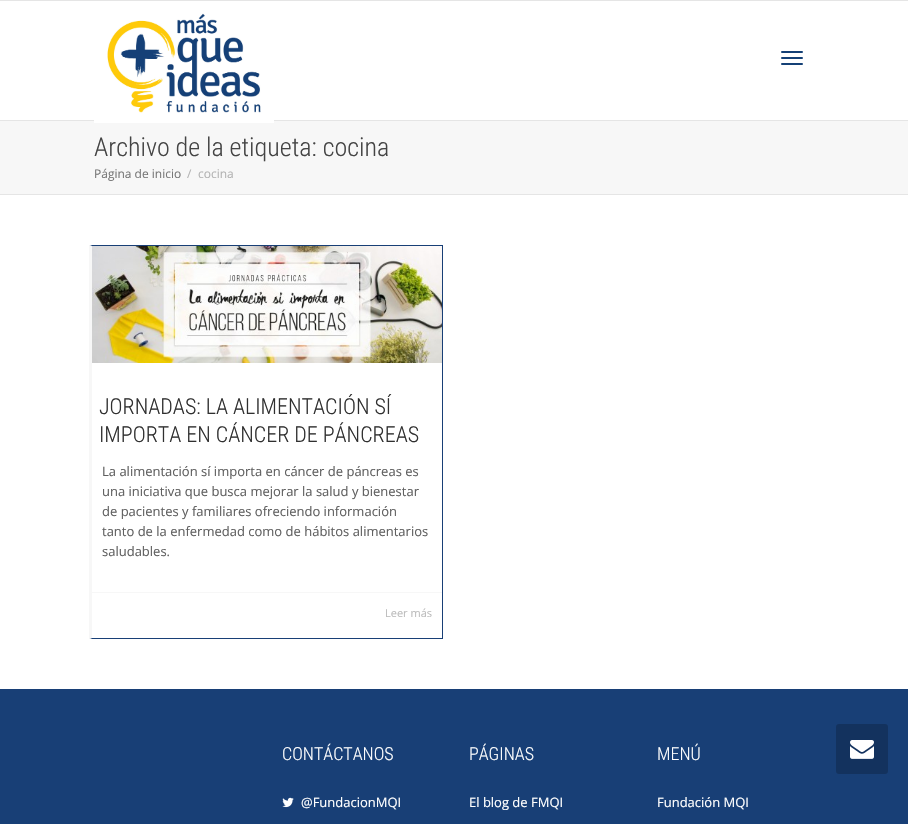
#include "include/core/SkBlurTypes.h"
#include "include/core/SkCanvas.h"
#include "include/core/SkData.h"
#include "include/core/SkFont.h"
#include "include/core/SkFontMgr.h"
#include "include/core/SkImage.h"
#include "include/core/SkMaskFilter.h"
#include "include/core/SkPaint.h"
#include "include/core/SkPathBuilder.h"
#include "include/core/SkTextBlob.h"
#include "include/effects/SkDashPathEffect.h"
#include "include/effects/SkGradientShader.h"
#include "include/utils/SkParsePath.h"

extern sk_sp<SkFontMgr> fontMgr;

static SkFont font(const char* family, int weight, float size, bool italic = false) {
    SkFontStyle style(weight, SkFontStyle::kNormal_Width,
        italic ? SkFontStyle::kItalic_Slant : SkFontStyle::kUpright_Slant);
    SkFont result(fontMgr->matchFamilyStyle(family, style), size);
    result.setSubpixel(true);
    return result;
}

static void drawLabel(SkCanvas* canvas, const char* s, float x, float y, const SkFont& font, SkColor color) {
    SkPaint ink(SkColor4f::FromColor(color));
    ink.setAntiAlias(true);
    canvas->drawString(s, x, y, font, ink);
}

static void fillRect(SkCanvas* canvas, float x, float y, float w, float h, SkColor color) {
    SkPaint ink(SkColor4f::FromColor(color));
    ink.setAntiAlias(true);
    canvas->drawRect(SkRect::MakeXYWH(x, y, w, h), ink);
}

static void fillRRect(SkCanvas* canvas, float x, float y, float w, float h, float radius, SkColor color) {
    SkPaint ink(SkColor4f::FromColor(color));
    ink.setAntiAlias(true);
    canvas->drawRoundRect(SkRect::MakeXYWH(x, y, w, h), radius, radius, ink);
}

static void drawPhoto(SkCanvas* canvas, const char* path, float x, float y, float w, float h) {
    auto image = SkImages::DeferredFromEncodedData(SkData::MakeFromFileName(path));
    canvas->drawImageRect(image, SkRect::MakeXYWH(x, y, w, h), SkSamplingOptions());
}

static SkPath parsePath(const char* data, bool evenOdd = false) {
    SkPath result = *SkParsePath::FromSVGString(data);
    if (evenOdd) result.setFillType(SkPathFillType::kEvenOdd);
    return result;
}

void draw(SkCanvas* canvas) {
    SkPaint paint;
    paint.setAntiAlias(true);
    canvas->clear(0xFFFFFFFF);
    fillRect(canvas, 0, 0, 908, 1, 0xFFE5E5E5);
    fillRect(canvas, 0, 120, 908, 1, 0xFFE5E5E5);
    fillRect(canvas, 0, 121, 908, 73, 0xFFF7F7F7);
    drawPhoto(canvas, "assets/img1.png", 94, 13, 180, 110);
    fillRRect(canvas, 781, 51, 22, 2, 1, 0xFF144076);
    fillRRect(canvas, 781, 57, 22, 2, 1, 0xFF144076);
    fillRRect(canvas, 781, 63, 22, 2, 1, 0xFF144076);
    fillRect(canvas, 0, 194, 908, 1, 0xFFE5E5E5);
    SkFont font1 = font("Roboto Condensed", 300, 26);
    drawLabel(canvas, "Archivo de la etiqueta: cocina", 94, 156, font1, 0xFF444444);
    SkFont font2 = font("Open Sans", 400, 12);
    drawLabel(canvas, "Página de inicio", 94, 178, font2, 0xFF777777);
    drawLabel(canvas, "/", 187, 178, font2, 0xFFB3B3B3);
    drawLabel(canvas, "cocina", 198, 178, font2, 0xFFB3B3B3);
    paint.setColor(0xFF183F76);
    canvas->drawPath(parsePath("M89 245H443L442 246H92Z"), paint);
    fillRect(canvas, 442, 245, 1, 394, 0xFF183F76);
    canvas->drawPath(parsePath("M443 639H89L92 638H442Z"), paint);
    paint.setColor(0xFFF7F7F7);
    canvas->drawPath(parsePath("M89 639V245L92 246V638Z"), paint);
    drawPhoto(canvas, "assets/img2.png", 92, 246, 350, 117);
    SkFont font3 = font("Roboto Condensed", 300, 22);
    drawLabel(canvas, "JORNADAS: LA ALIMENTACIÓN SÍ", 99, 414, font3, 0xFF303030);
    drawLabel(canvas, "IMPORTA EN CÁNCER DE PÁNCREAS", 99, 442, font3, 0xFF303030);
    SkFont font4 = font("Open Sans", 400, 13);
    drawLabel(canvas, "La alimentación sí importa en cáncer de páncreas es", 102, 476, font4, 0xFF606060);
    drawLabel(canvas, "una iniciativa que busca mejorar la salud y bienestar", 102, 496, font4, 0xFF606060);
    drawLabel(canvas, "de pacientes y familiares ofreciendo información", 102, 516, font4, 0xFF606060);
    drawLabel(canvas, "tanto de la enfermedad como de hábitos alimentarios", 102, 536, font4, 0xFF606060);
    drawLabel(canvas, "saludables.", 102, 556, font4, 0xFF606060);
    fillRect(canvas, 92, 592, 350, 1, 0xFFF7F7F7);
    SkFont font5 = font("Open Sans", 400, 11);
    drawLabel(canvas, "Leer más", 385, 617, font5, 0xFFBBBBBB);
    fillRect(canvas, 0, 689, 908, 135, 0xFF183F76);
    SkFont font6 = font("Roboto Condensed", 300, 18);
    drawLabel(canvas, "CONTÁCTANOS", 282, 760, font6, 0xFFFFFFFF);
    drawPhoto(canvas, "assets/img3.png", 282, 797, 12, 11);
    drawLabel(canvas, "@FundacionMQI", 301, 807, font4, 0xFFFFFFFF);
    drawLabel(canvas, "PÁGINAS", 469, 760, font6, 0xFFFFFFFF);
    drawLabel(canvas, "El blog de FMQI", 469, 807, font4, 0xFFFFFFFF);
    drawLabel(canvas, "MENÚ", 657, 760, font6, 0xFFFFFFFF);
    drawLabel(canvas, "Fundación MQI", 657, 807, font4, 0xFFFFFFFF);
    fillRRect(canvas, 836, 724, 52, 50, 3, 0xFF13325E);
    drawPhoto(canvas, "assets/img4.png", 850, 740, 24, 19);
}
